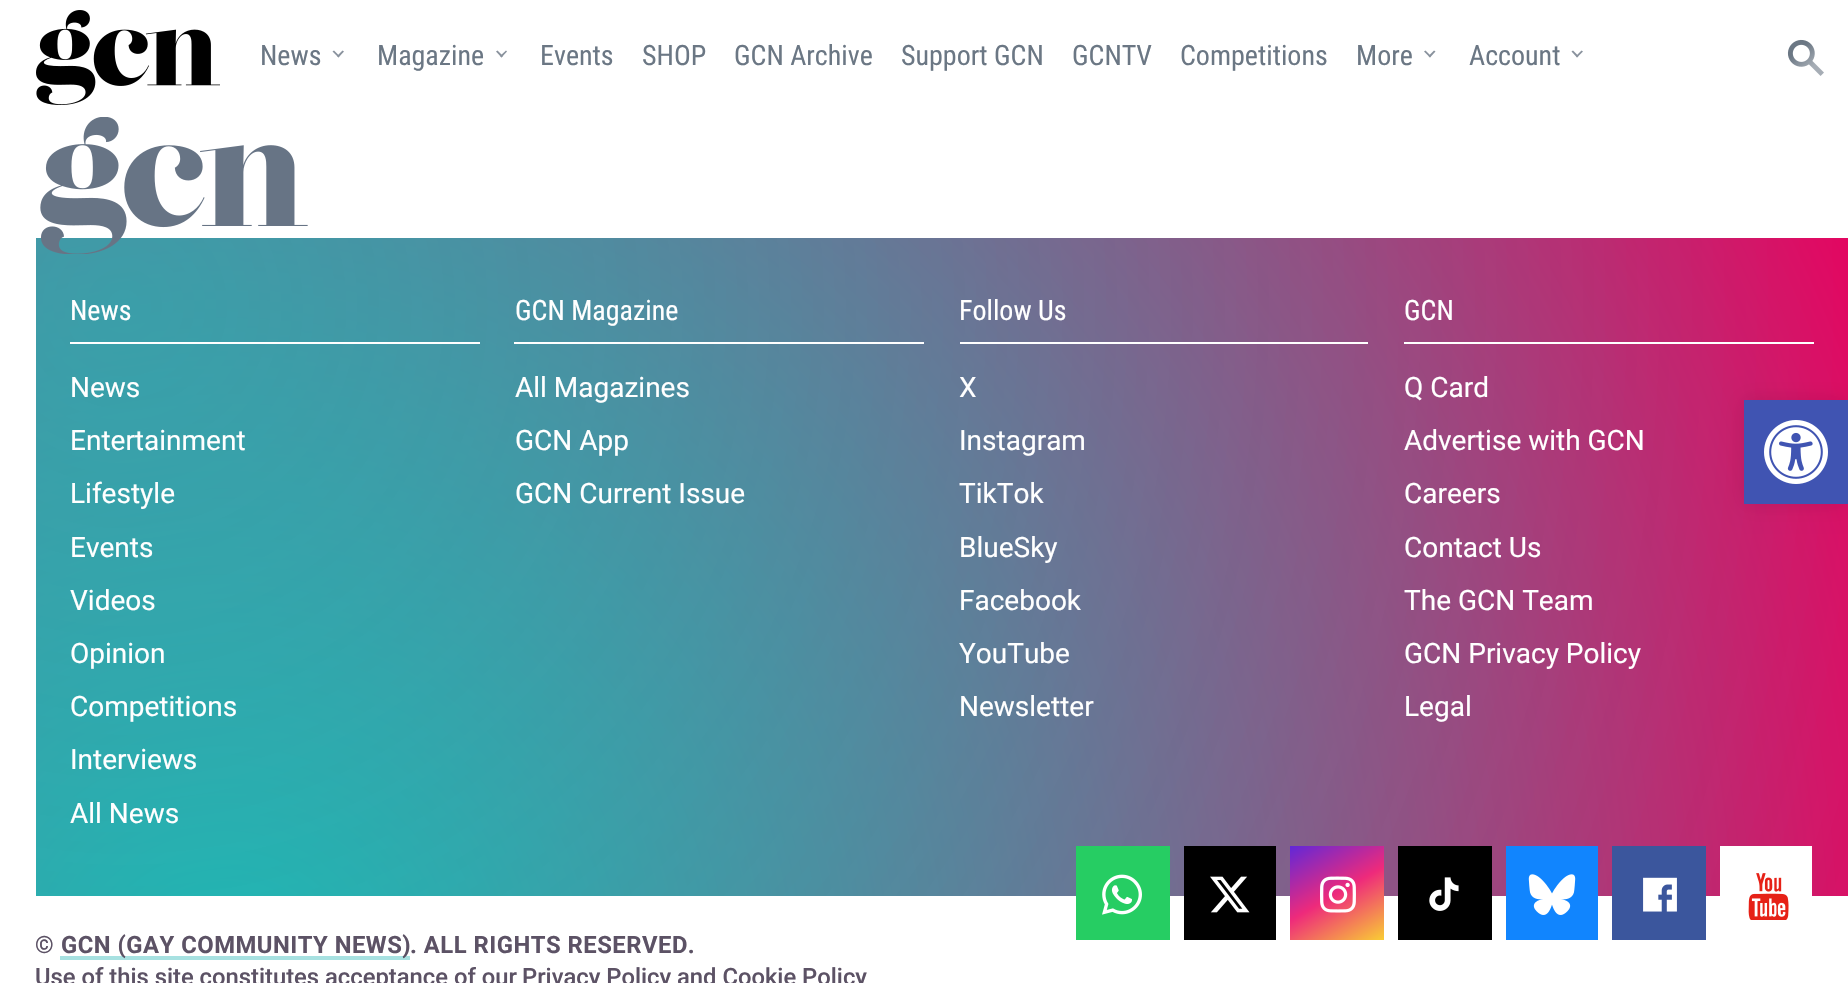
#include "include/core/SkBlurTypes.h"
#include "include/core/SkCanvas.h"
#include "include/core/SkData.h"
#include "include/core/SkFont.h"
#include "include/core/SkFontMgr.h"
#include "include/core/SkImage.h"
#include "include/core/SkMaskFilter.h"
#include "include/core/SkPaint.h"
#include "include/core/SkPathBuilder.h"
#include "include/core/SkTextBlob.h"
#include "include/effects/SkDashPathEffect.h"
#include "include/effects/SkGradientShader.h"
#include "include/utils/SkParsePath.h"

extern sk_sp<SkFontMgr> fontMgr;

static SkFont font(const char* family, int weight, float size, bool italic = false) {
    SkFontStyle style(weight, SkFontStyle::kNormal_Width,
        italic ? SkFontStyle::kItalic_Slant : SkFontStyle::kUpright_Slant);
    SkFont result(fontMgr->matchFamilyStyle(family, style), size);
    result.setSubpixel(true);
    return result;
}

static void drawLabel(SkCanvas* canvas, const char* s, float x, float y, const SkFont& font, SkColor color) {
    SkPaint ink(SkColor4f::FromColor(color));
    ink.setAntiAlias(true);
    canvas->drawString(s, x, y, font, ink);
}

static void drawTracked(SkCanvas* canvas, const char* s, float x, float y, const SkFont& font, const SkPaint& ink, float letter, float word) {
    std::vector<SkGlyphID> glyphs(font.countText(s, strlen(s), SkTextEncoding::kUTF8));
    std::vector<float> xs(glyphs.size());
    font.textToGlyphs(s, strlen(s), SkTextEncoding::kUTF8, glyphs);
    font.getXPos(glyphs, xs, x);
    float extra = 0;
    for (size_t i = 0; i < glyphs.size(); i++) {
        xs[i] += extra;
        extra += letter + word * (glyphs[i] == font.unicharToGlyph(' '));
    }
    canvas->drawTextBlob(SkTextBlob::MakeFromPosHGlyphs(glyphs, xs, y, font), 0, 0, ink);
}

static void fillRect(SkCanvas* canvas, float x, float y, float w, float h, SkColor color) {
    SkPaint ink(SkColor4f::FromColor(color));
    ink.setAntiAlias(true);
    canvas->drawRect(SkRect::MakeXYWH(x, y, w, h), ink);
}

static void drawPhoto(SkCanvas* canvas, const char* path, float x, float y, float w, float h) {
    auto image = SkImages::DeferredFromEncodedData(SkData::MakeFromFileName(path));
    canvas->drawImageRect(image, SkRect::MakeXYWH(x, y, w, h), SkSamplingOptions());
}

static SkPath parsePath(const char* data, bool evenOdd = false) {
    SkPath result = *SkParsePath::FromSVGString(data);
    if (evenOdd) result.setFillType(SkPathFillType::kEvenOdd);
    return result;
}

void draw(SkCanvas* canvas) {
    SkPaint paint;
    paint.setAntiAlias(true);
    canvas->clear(0xFFFFFFFF);
    drawPhoto(canvas, "assets/img1.png", 36, 10, 184, 95);
    SkFont font1 = font("Roboto Condensed", 400, 28);
    drawLabel(canvas, "News", 260, 65, font1, 0xFF6B7784);
    paint.setColor(0xFF89929D);
    canvas->drawPath(parsePath("M342.5 50.5L344 51.5L338.5 57.5L337 56Z"), paint);
    canvas->drawPath(parsePath("M334 50.5L339.5 56L338.5 57.5L332.5 51.5Z"), paint);
    drawLabel(canvas, "Magazine", 377, 65, font1, 0xFF6B7784);
    canvas->drawPath(parsePath("M506 50.5L507 51.5L501.5 57.5L500 56Z"), paint);
    canvas->drawPath(parsePath("M497.5 50.5L503 56L501.5 57.5L496 51.5Z"), paint);
    drawLabel(canvas, "Events", 540, 65, font1, 0xFF6B7784);
    drawLabel(canvas, "SHOP", 642, 65, font1, 0xFF6B7784);
    drawLabel(canvas, "GCN Archive", 734, 65, font1, 0xFF6B7784);
    drawLabel(canvas, "Support GCN", 901, 65, font1, 0xFF6B7784);
    drawLabel(canvas, "GCNTV", 1072, 65, font1, 0xFF6B7784);
    drawLabel(canvas, "Competitions", 1180, 65, font1, 0xFF6B7784);
    drawLabel(canvas, "More", 1356, 65, font1, 0xFF6B7784);
    canvas->drawPath(parsePath("M1434 50.5L1435.5 51.5L1430 57.5L1428.5 56Z"), paint);
    canvas->drawPath(parsePath("M1425.5 50.5L1431 56L1430 57.5L1424 51.5Z"), paint);
    drawLabel(canvas, "Account", 1469, 65, font1, 0xFF6B7784);
    canvas->drawPath(parsePath("M1581.5 50.5L1583 51.5L1577 57.5L1576 56Z"), paint);
    canvas->drawPath(parsePath("M1573 50.5L1578.5 56L1577 57.5L1571.5 51.5Z"), paint);
    drawPhoto(canvas, "assets/img2.png", 1787, 39, 37, 37);
    {
        const SkColor colors[] = {0xFF24B3B0, 0xFFEB005E};
        const float stops[] = {0.05f, 1};
        paint.setShader(SkGradientShader::MakeRadial({225, 992}, 1790, colors, stops, 2, SkTileMode::kClamp));
        paint.setAlpha(255);
    }
    canvas->drawRect(SkRect::MakeXYWH(36, 238, 1812, 658), paint);
    {
        const SkColor colors[] = {0xA822B4B4, 0x0022B4B4};
        const float stops[] = {0, 1};
        paint.setShader(SkGradientShader::MakeRadial({124, 306}, 1823, colors, stops, 2, SkTileMode::kClamp));
        paint.setAlpha(255);
    }
    canvas->drawRect(SkRect::MakeXYWH(36, 238, 1812, 658), paint);
    drawPhoto(canvas, "assets/img3.png", 40, 117, 268, 137);
    fillRect(canvas, 70, 342, 410, 2, 0xFFFFFFFF);
    drawLabel(canvas, "News", 70, 320, font1, 0xFFFFFFFF);
    SkFont font2 = font("Roboto", 400, 28);
    drawLabel(canvas, "News", 70, 397, font2, 0xFFFFFFFF);
    drawLabel(canvas, "Entertainment", 70, 450, font2, 0xFFFFFFFF);
    drawLabel(canvas, "Lifestyle", 70, 503, font2, 0xFFFFFFFF);
    drawLabel(canvas, "Events", 70, 557, font2, 0xFFFFFFFF);
    drawLabel(canvas, "Videos", 70, 610, font2, 0xFFFFFFFF);
    drawLabel(canvas, "Opinion", 70, 663, font2, 0xFFFFFFFF);
    drawLabel(canvas, "Competitions", 70, 716, font2, 0xFFFFFFFF);
    drawLabel(canvas, "Interviews", 70, 769, font2, 0xFFFFFFFF);
    drawLabel(canvas, "All News", 70, 823, font2, 0xFFFFFFFF);
    fillRect(canvas, 514, 342, 410, 2, 0xFFFFFFFF);
    drawLabel(canvas, "GCN Magazine", 515, 320, font1, 0xFFFFFFFF);
    drawLabel(canvas, "All Magazines", 515, 397, font2, 0xFFFFFFFF);
    drawLabel(canvas, "GCN App", 515, 450, font2, 0xFFFFFFFF);
    drawLabel(canvas, "GCN Current Issue", 515, 503, font2, 0xFFFFFFFF);
    fillRect(canvas, 960, 342, 408, 2, 0xFFFFFFFF);
    drawLabel(canvas, "Follow Us", 959, 320, font1, 0xFFFFFFFF);
    drawLabel(canvas, "X", 959, 397, font2, 0xFFFFFFFF);
    drawLabel(canvas, "Instagram", 959, 450, font2, 0xFFFFFFFF);
    drawLabel(canvas, "TikTok", 959, 503, font2, 0xFFFFFFFF);
    drawLabel(canvas, "BlueSky", 959, 557, font2, 0xFFFFFFFF);
    drawLabel(canvas, "Facebook", 959, 610, font2, 0xFFFFFFFF);
    drawLabel(canvas, "YouTube", 959, 663, font2, 0xFFFFFFFF);
    drawLabel(canvas, "Newsletter", 959, 716, font2, 0xFFFFFFFF);
    fillRect(canvas, 1404, 342, 410, 2, 0xFFFFFFFF);
    drawLabel(canvas, "GCN", 1404, 320, font1, 0xFFFFFFFF);
    drawLabel(canvas, "Q Card", 1404, 397, font2, 0xFFFFFFFF);
    drawLabel(canvas, "Advertise with GCN", 1404, 450, font2, 0xFFFFFFFF);
    drawLabel(canvas, "Careers", 1404, 503, font2, 0xFFFFFFFF);
    drawLabel(canvas, "Contact Us", 1404, 557, font2, 0xFFFFFFFF);
    drawLabel(canvas, "The GCN Team", 1404, 610, font2, 0xFFFFFFFF);
    drawLabel(canvas, "GCN Privacy Policy", 1404, 663, font2, 0xFFFFFFFF);
    drawLabel(canvas, "Legal", 1404, 716, font2, 0xFFFFFFFF);
    fillRect(canvas, 1076, 846, 94, 94, 0xFF26CD63);
    drawPhoto(canvas, "assets/img4.png", 1102, 874, 40, 41);
    fillRect(canvas, 1184, 846, 92, 94, 0xFF000000);
    drawPhoto(canvas, "assets/img5.png", 1210, 876, 40, 37);
    {
        const SkColor colors[] = {0xFFF9CE34, 0xFFEE2A7B, 0xFF6228D7};
        const float stops[] = {0, 0.5f, 1};
        const SkPoint ends[] = {{1369, 949}, {1305, 838}};
        paint.setShader(SkGradientShader::MakeLinear(ends, colors, stops, 3, SkTileMode::kClamp));
        paint.setAlpha(255);
    }
    canvas->drawRect(SkRect::MakeXYWH(1290, 846, 94, 94), paint);
    drawPhoto(canvas, "assets/img6.png", 1320, 876, 36, 37);
    fillRect(canvas, 1398, 846, 94, 94, 0xFF000000);
    drawPhoto(canvas, "assets/img7.png", 1429, 877, 30, 34);
    fillRect(canvas, 1506, 846, 92, 94, 0xFF1185FE);
    drawPhoto(canvas, "assets/img8.png", 1528, 874, 48, 41);
    fillRect(canvas, 1612, 846, 94, 94, 0xFF3B569D);
    drawPhoto(canvas, "assets/img9.png", 1643, 877, 34, 35);
    fillRect(canvas, 1720, 846, 92, 50, 0xFFFFFFFF);
    drawPhoto(canvas, "assets/img10.png", 1748, 873, 41, 47);
    SkFont font3 = font("Roboto", 700, 23.8f);
    paint.setShader(nullptr);
    paint.setColor(0xFF5C5265);
    drawTracked(canvas, "©", 35, 953, font3, paint, 0.5f, 0);
    fillRect(canvas, 60, 956, 350, 4, 0xFFA7E1E1);
    drawTracked(canvas, "GCN (GAY COMMUNITY NEWS)", 61, 953, font3, paint, 0.5f, 0);
    drawTracked(canvas, ". ALL RIGHTS RESERVED.", 410, 953, font3, paint, 0.5f, 0);
    SkFont font4 = font("Roboto", 500, 23.8f);
    drawLabel(canvas, "Use of this site constitutes acceptance of our", 35, 985, font4, 0xFF5C5265);
    drawLabel(canvas, "Privacy Policy", 522, 985, font4, 0xFF5C5265);
    drawLabel(canvas, "and Cookie Policy", 677, 985, font4, 0xFF5C5265);
    paint.setColor(0x1A000000);
    paint.setMaskFilter(SkMaskFilter::MakeBlur(kNormal_SkBlurStyle, 10));
    canvas->drawRect(SkRect::MakeXYWH(1744, 400, 104, 104), paint);
    paint.setMaskFilter(nullptr);
    fillRect(canvas, 1744, 400, 104, 104, 0xFF4054B2);
    drawPhoto(canvas, "assets/img11.png", 1764, 420, 64, 64);
}
